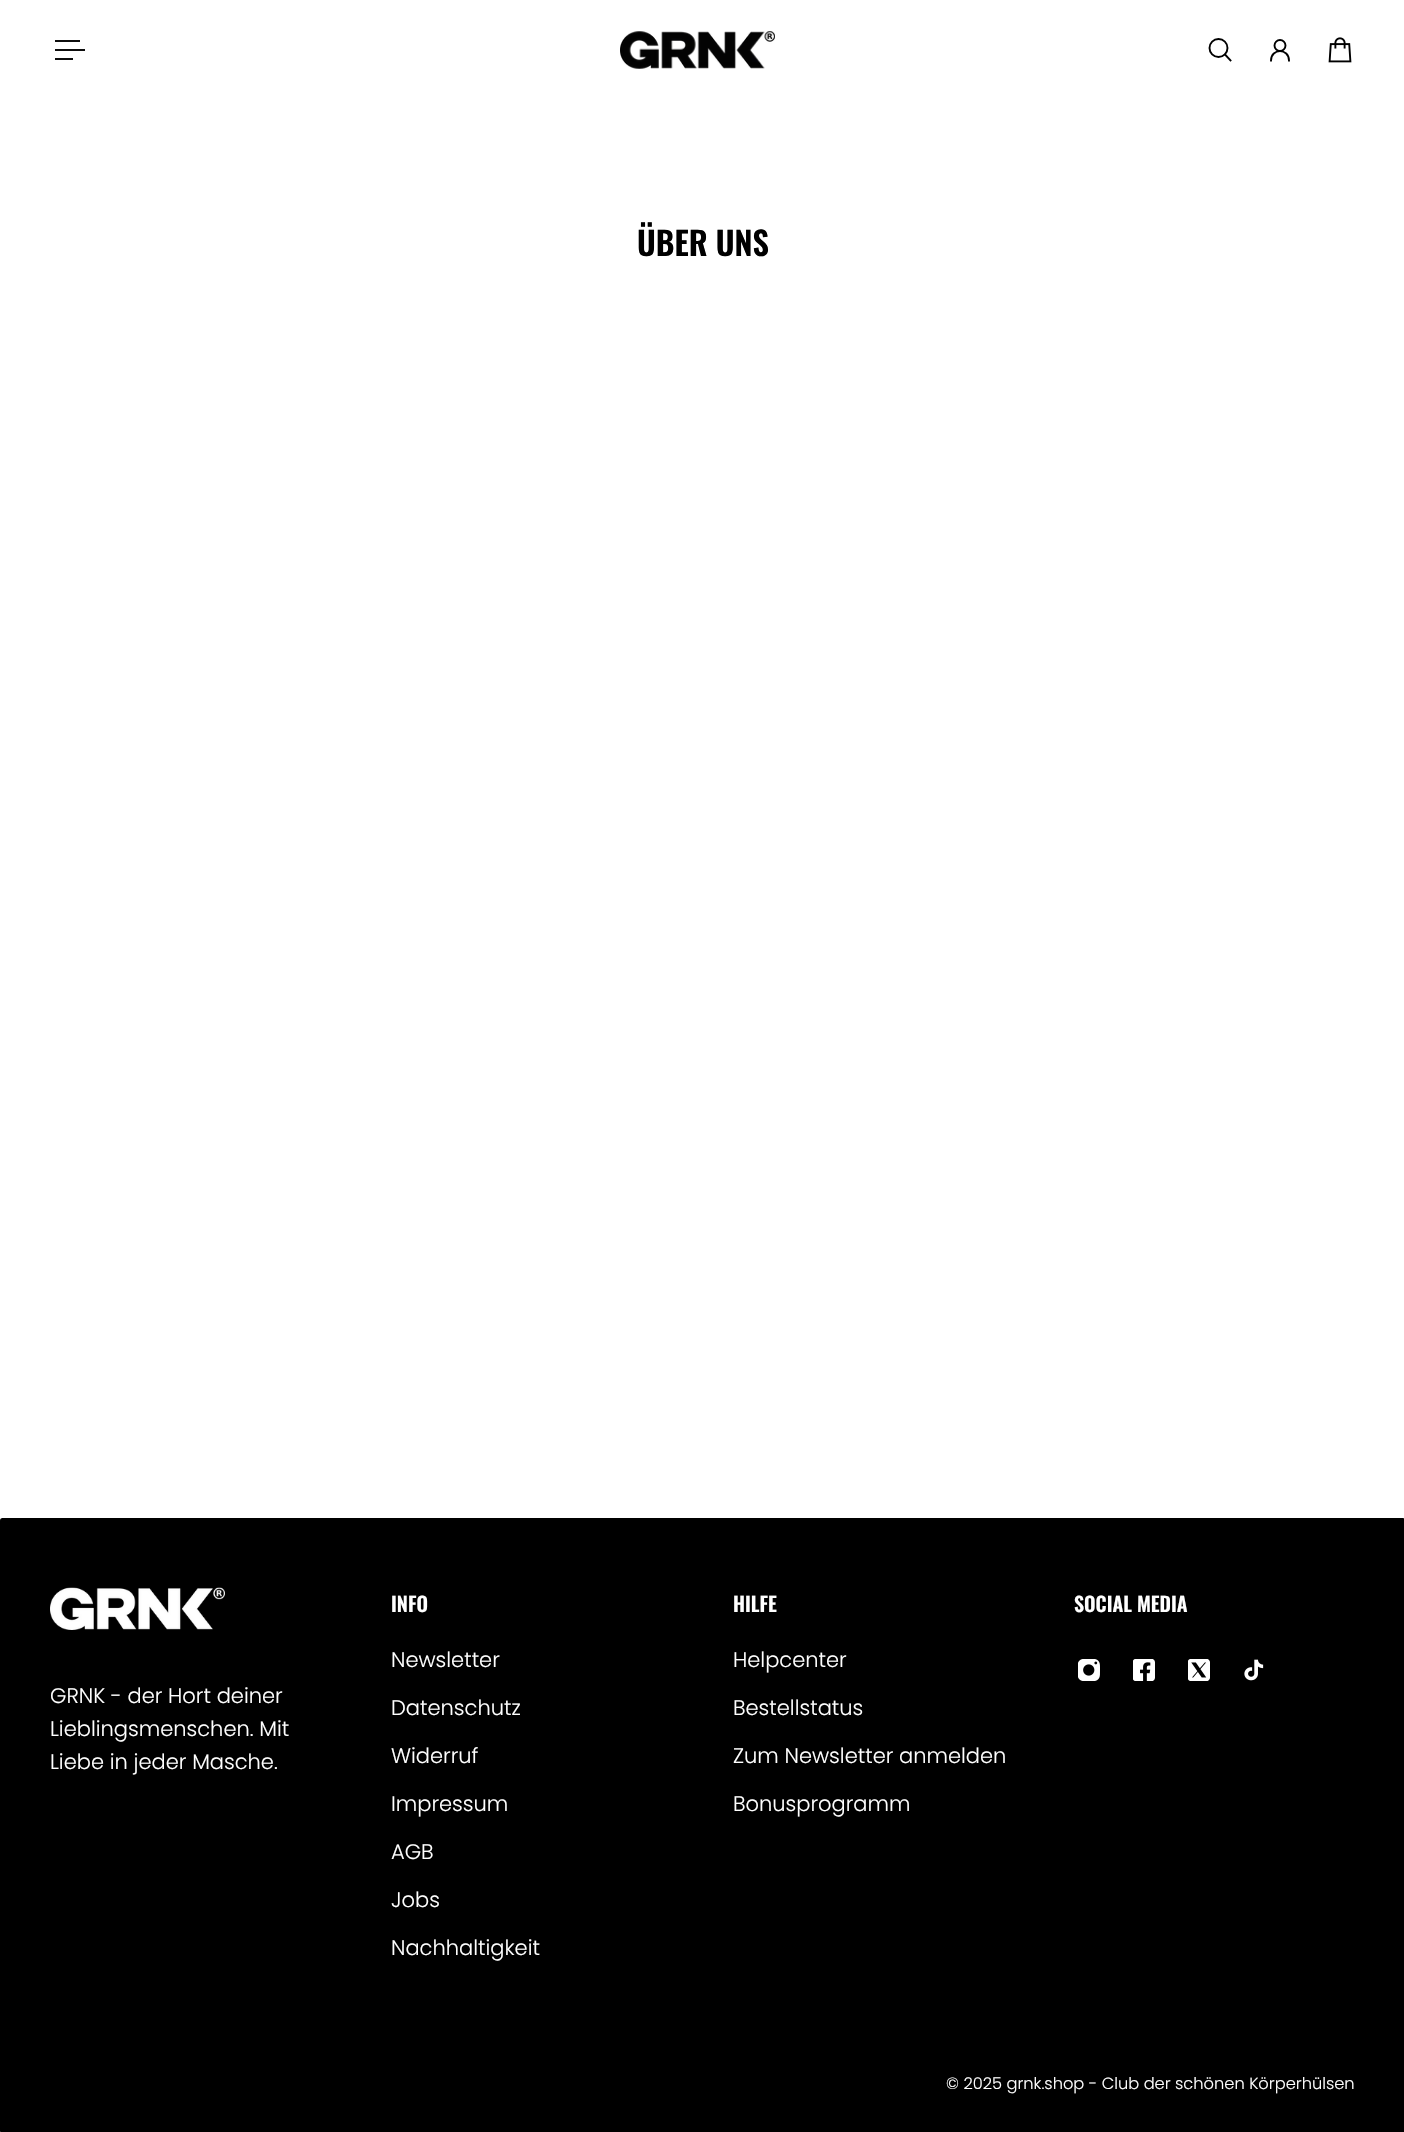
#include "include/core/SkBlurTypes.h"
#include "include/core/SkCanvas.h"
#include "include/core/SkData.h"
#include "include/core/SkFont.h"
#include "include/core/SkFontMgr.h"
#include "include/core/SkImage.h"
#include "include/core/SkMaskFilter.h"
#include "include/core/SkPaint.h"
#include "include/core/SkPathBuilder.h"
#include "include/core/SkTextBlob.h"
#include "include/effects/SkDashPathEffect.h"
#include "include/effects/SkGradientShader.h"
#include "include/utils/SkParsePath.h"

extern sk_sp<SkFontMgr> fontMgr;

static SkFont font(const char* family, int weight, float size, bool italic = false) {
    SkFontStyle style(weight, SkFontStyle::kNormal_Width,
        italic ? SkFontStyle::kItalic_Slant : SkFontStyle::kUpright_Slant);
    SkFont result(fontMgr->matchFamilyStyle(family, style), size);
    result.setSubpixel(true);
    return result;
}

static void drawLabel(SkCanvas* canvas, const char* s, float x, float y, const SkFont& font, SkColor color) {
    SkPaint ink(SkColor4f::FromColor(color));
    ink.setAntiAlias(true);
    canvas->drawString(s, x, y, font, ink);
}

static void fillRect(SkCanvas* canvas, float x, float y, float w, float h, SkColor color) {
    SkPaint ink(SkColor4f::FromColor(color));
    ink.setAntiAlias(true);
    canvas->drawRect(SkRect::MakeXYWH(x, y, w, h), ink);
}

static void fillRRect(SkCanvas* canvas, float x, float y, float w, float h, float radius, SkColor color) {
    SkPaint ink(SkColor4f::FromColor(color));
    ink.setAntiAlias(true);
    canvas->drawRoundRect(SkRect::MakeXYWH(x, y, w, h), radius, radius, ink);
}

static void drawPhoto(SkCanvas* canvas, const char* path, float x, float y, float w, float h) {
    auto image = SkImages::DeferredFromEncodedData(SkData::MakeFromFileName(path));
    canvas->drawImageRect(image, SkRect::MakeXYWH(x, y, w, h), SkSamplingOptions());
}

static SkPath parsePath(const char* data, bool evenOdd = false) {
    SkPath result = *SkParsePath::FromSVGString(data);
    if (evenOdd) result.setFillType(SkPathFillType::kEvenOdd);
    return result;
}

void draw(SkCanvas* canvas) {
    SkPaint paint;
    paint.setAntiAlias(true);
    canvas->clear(0xFFFFFFFF);
    fillRect(canvas, 55, 40, 25, 2, 0xFF0D0D0D);
    fillRect(canvas, 55, 49, 30, 2, 0xFF0D0D0D);
    fillRect(canvas, 55, 58, 18, 2, 0xFF0D0D0D);
    drawPhoto(canvas, "assets/img1.png", 620, 31, 155, 38);
    paint.setStroke(true);
    paint.setStrokeWidth(1.9f);
    paint.setColor(0xFF000000);
    canvas->drawCircle(1218.5f, 48, 9, paint);
    paint.setStrokeCap(SkPaint::kSquare_Cap);
    paint.setStrokeJoin(SkPaint::kRound_Join);
    canvas->drawPath(parsePath("M1225 54.5L1230.5 60.5"), paint);
    paint.setStrokeCap(SkPaint::kButt_Cap);
    paint.setStrokeJoin(SkPaint::kMiter_Join);
    canvas->drawCircle(1280, 45.5f, 5.5f, paint);
    paint.setStrokeCap(SkPaint::kSquare_Cap);
    paint.setStrokeJoin(SkPaint::kRound_Join);
    canvas->drawPath(parsePath("M1289 60.5C1289 48 1271 48 1271 60.5"), paint);
    drawPhoto(canvas, "assets/img2.png", 1328, 37, 24, 26);
    SkFont font1 = font("Oswald", 600, 32.5f);
    drawLabel(canvas, "ÜBER UNS", 637, 256, font1, 0xFF000000);
    fillRRect(canvas, 0, 1518, 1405, 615, 2.5f, 0xFF000000);
    SkFont font2 = font("Oswald", 600, 20);
    drawLabel(canvas, "INFO", 391, 1612, font2, 0xFFFFFFFF);
    SkFont font3 = font("Poppins", 300, 21);
    drawLabel(canvas, "Newsletter", 391, 1667, font3, 0xFFFFFFFF);
    drawLabel(canvas, "Datenschutz", 391, 1715, font3, 0xFFFFFFFF);
    drawLabel(canvas, "Widerruf", 391, 1763, font3, 0xFFFFFFFF);
    drawLabel(canvas, "Impressum", 391, 1811, font3, 0xFFFFFFFF);
    drawLabel(canvas, "AGB", 391, 1859, font3, 0xFFFFFFFF);
    drawLabel(canvas, "Jobs", 391, 1907, font3, 0xFFFFFFFF);
    drawLabel(canvas, "Nachhaltigkeit", 391, 1955, font3, 0xFFFFFFFF);
    drawLabel(canvas, "HILFE", 733, 1612, font2, 0xFFFFFFFF);
    drawLabel(canvas, "Helpcenter", 733, 1667, font3, 0xFFFFFFFF);
    drawLabel(canvas, "Bestellstatus", 733, 1715, font3, 0xFFFFFFFF);
    drawLabel(canvas, "Zum Newsletter anmelden", 733, 1763, font3, 0xFFFFFFFF);
    drawLabel(canvas, "Bonusprogramm", 733, 1811, font3, 0xFFFFFFFF);
    drawLabel(canvas, "SOCIAL MEDIA", 1074, 1612, font2, 0xFFFFFFFF);
    drawPhoto(canvas, "assets/img3.png", 1078, 1659, 22, 22);
    drawPhoto(canvas, "assets/img4.png", 1133, 1659, 22, 22);
    drawPhoto(canvas, "assets/img5.png", 1188, 1659, 22, 22);
    drawPhoto(canvas, "assets/img6.png", 1244, 1659, 20, 22);
    drawPhoto(canvas, "assets/img7.png", 50, 1587, 175, 43);
    drawLabel(canvas, "GRNK - der Hort deiner", 50, 1703, font3, 0xFFFFFFFF);
    drawLabel(canvas, "Lieblingsmenschen. Mit", 50, 1736, font3, 0xFFFFFFFF);
    drawLabel(canvas, "Liebe in jeder Masche.", 50, 1769, font3, 0xFFFFFFFF);
    SkFont font4 = font("Poppins", 300, 16.25f);
    drawLabel(canvas, "© 2025 grnk.shop - Club der schönen Körperhülsen", 946, 2089, font4, 0xFFFFFFFF);
}
